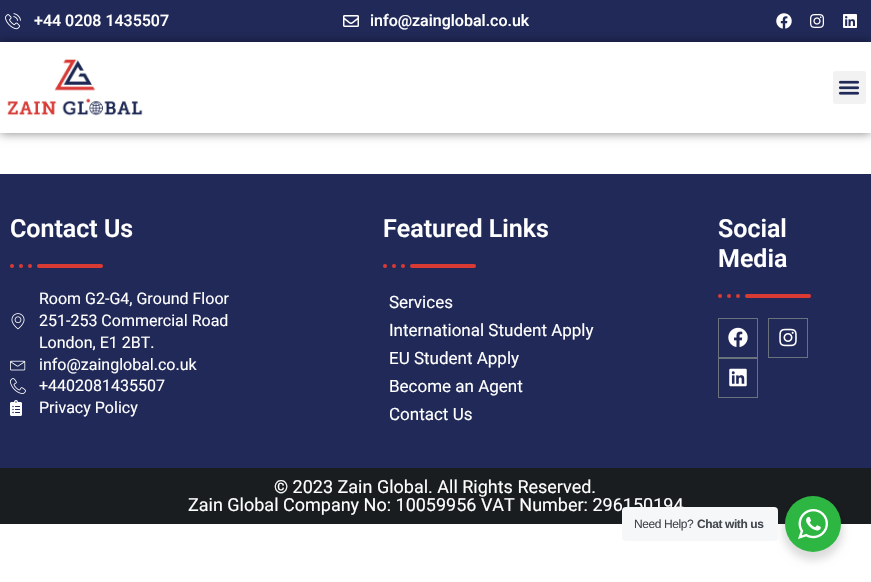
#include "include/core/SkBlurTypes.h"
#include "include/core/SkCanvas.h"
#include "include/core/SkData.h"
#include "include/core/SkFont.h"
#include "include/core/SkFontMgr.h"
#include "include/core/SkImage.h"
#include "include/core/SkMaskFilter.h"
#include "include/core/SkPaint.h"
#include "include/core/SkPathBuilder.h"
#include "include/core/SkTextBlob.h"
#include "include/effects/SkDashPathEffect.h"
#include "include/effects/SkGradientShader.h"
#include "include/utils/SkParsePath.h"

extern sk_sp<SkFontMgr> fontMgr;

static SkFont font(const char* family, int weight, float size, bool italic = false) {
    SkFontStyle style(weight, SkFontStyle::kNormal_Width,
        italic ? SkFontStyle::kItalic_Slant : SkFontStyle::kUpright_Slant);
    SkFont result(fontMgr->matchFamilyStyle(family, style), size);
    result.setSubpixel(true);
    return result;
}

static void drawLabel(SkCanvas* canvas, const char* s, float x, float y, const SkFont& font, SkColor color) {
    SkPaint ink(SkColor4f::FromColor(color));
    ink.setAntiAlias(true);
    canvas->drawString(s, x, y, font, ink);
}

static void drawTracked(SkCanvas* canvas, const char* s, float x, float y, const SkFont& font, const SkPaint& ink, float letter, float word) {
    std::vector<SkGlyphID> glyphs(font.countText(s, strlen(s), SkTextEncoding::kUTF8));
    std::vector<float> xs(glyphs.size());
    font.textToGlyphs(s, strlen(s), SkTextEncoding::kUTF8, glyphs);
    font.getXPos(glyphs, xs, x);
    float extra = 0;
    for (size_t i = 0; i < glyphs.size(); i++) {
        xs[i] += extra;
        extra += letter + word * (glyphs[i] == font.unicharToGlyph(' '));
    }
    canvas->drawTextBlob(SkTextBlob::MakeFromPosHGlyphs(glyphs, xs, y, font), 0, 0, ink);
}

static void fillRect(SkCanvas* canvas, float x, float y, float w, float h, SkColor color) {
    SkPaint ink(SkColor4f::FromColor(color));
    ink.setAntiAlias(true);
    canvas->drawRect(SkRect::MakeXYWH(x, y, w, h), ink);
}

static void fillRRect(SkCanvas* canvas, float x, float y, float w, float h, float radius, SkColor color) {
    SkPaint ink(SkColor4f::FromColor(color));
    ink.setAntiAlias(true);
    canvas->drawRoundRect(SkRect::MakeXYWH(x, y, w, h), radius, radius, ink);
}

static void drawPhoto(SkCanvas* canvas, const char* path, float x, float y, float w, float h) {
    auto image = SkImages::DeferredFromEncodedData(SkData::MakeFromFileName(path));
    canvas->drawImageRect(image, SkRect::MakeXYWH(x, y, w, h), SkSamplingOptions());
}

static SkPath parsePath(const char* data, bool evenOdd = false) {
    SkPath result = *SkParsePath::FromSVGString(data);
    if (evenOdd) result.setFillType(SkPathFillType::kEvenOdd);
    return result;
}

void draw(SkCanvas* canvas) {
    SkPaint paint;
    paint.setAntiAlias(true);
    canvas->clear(0xFFFFFFFF);
    fillRect(canvas, 0, 0, 871, 42, 0xFF212958);
    drawPhoto(canvas, "assets/img1.png", 5, 13, 16, 17);
    SkFont font1 = font("Roboto", 500, 16);
    drawLabel(canvas, "+44 0208 1435507", 34, 26, font1, 0xFFFFFFFF);
    drawPhoto(canvas, "assets/img2.png", 343, 15, 16, 12);
    drawLabel(canvas, "info@zainglobal.co.uk", 370, 26, font1, 0xFFFFFFFF);
    drawPhoto(canvas, "assets/img3.png", 776, 13, 16, 16);
    drawPhoto(canvas, "assets/img4.png", 810, 14, 14, 14);
    drawPhoto(canvas, "assets/img5.png", 843, 14, 14, 14);
    canvas->save();
    canvas->clipPath(parsePath("M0 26H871V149H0ZM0 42H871V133H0Z", true), true);
    paint.setColor(0x80000000);
    paint.setMaskFilter(SkMaskFilter::MakeBlur(kNormal_SkBlurStyle, 5));
    canvas->drawRect(SkRect::MakeXYWH(0, 42, 871, 91), paint);
    paint.setMaskFilter(nullptr);
    canvas->restore();
    drawPhoto(canvas, "assets/img6.png", 7, 59, 136, 57);
    fillRRect(canvas, 833, 71, 33, 33, 3, 0xFFF2F2F2);
    drawPhoto(canvas, "assets/img7.png", 838, 80, 22, 15);
    fillRect(canvas, 0, 174, 871, 294, 0xFF212958);
    SkFont font2 = font("Roboto", 600, 25);
    drawLabel(canvas, "Contact Us", 10, 237, font2, 0xFFFFFFFF);
    fillRRect(canvas, 37, 264, 66, 4, 2, 0xFFDA3A34);
    paint.setColor(0xFFDA3A34);
    canvas->drawCircle(30, 266, 2, paint);
    canvas->drawCircle(21, 266, 2, paint);
    canvas->drawCircle(12, 266, 2, paint);
    drawPhoto(canvas, "assets/img8.png", 11, 313, 14, 17);
    SkFont font3 = font("Roboto", 400, 16);
    drawLabel(canvas, "Room G2-G4, Ground Floor", 39, 304, font3, 0xFFFFFFFF);
    drawLabel(canvas, "251-253 Commercial Road", 39, 326, font3, 0xFFFFFFFF);
    drawLabel(canvas, "London, E1 2BT.", 39, 348, font3, 0xFFFFFFFF);
    drawPhoto(canvas, "assets/img9.png", 10, 360, 16, 11);
    drawLabel(canvas, "info@zainglobal.co.uk", 39, 370, font3, 0xFFFFFFFF);
    drawPhoto(canvas, "assets/img10.png", 10, 378, 16, 16);
    drawLabel(canvas, "+4402081435507", 39, 391, font3, 0xFFFFFFFF);
    drawPhoto(canvas, "assets/img11.png", 10, 400, 12, 16);
    drawLabel(canvas, "Privacy Policy", 39, 413, font3, 0xFFFFFFFF);
    drawLabel(canvas, "Featured Links", 383, 237, font2, 0xFFFFFFFF);
    fillRRect(canvas, 410, 264, 66, 4, 2, 0xFFDA3A34);
    canvas->drawCircle(403, 266, 2, paint);
    canvas->drawCircle(394, 266, 2, paint);
    canvas->drawCircle(385, 266, 2, paint);
    SkFont font4 = font("Roboto", 400, 17);
    drawLabel(canvas, "Services", 389, 308, font4, 0xFFFFFFFF);
    drawLabel(canvas, "International Student Apply", 389, 336, font4, 0xFFFFFFFF);
    drawLabel(canvas, "EU Student Apply", 389, 364, font4, 0xFFFFFFFF);
    drawLabel(canvas, "Become an Agent", 389, 392, font4, 0xFFFFFFFF);
    drawLabel(canvas, "Contact Us", 389, 420, font4, 0xFFFFFFFF);
    drawLabel(canvas, "Social", 718, 237, font2, 0xFFFFFFFF);
    drawLabel(canvas, "Media", 718, 267, font2, 0xFFFFFFFF);
    fillRRect(canvas, 745, 294, 66, 4, 2, 0xFFDA3A34);
    canvas->drawCircle(738, 296, 2, paint);
    canvas->drawCircle(729, 296, 2, paint);
    canvas->drawCircle(720, 296, 2, paint);
    paint.setStroke(true);
    paint.setStrokeWidth(1);
    paint.setColor(0xFF69727D);
    canvas->drawRect(SkRect::MakeXYWH(718.5f, 318.5f, 39, 39), paint);
    drawPhoto(canvas, "assets/img12.png", 728, 327, 20, 20);
    canvas->drawRect(SkRect::MakeXYWH(768.5f, 318.5f, 39, 39), paint);
    drawPhoto(canvas, "assets/img13.png", 779, 328, 18, 19);
    canvas->drawRect(SkRect::MakeXYWH(718.5f, 358.5f, 39, 39), paint);
    drawPhoto(canvas, "assets/img14.png", 729, 368, 18, 19);
    fillRect(canvas, 0, 468, 871, 56, 0xFF191D1F);
    SkFont font5 = font("Roboto", 400, 18);
    drawLabel(canvas, "© 2023 Zain Global. All Rights Reserved.", 274, 493, font5, 0xFFFFFFFF);
    drawLabel(canvas, "Zain Global Company No: 10059956 VAT Number: 296150194", 188, 511, font5, 0xFFFFFFFF);
    paint.setStroke(false);
    paint.setColor(0x24000000);
    paint.setMaskFilter(SkMaskFilter::MakeBlur(kNormal_SkBlurStyle, 4));
    canvas->drawRoundRect(SkRect::MakeXYWH(783, 500, 60, 60), 30, 30, paint);
    paint.setMaskFilter(nullptr);
    fillRRect(canvas, 622, 507, 156, 34, 4, 0xFFF5F7F9);
    SkFont font6 = font("Liberation Sans", 400, 12);
    paint.setColor(0xFF43474E);
    drawTracked(canvas, "Need Help?", 634, 528, font6, paint, -0.4f, 0);
    SkFont font7 = font("Liberation Sans", 700, 12);
    drawTracked(canvas, "Chat with us", 697, 528, font7, paint, -0.4f, 0);
    paint.setColor(0xFF2DB742);
    canvas->drawCircle(813, 524, 28, paint);
    drawPhoto(canvas, "assets/img15.png", 798, 509, 30, 30);
}
